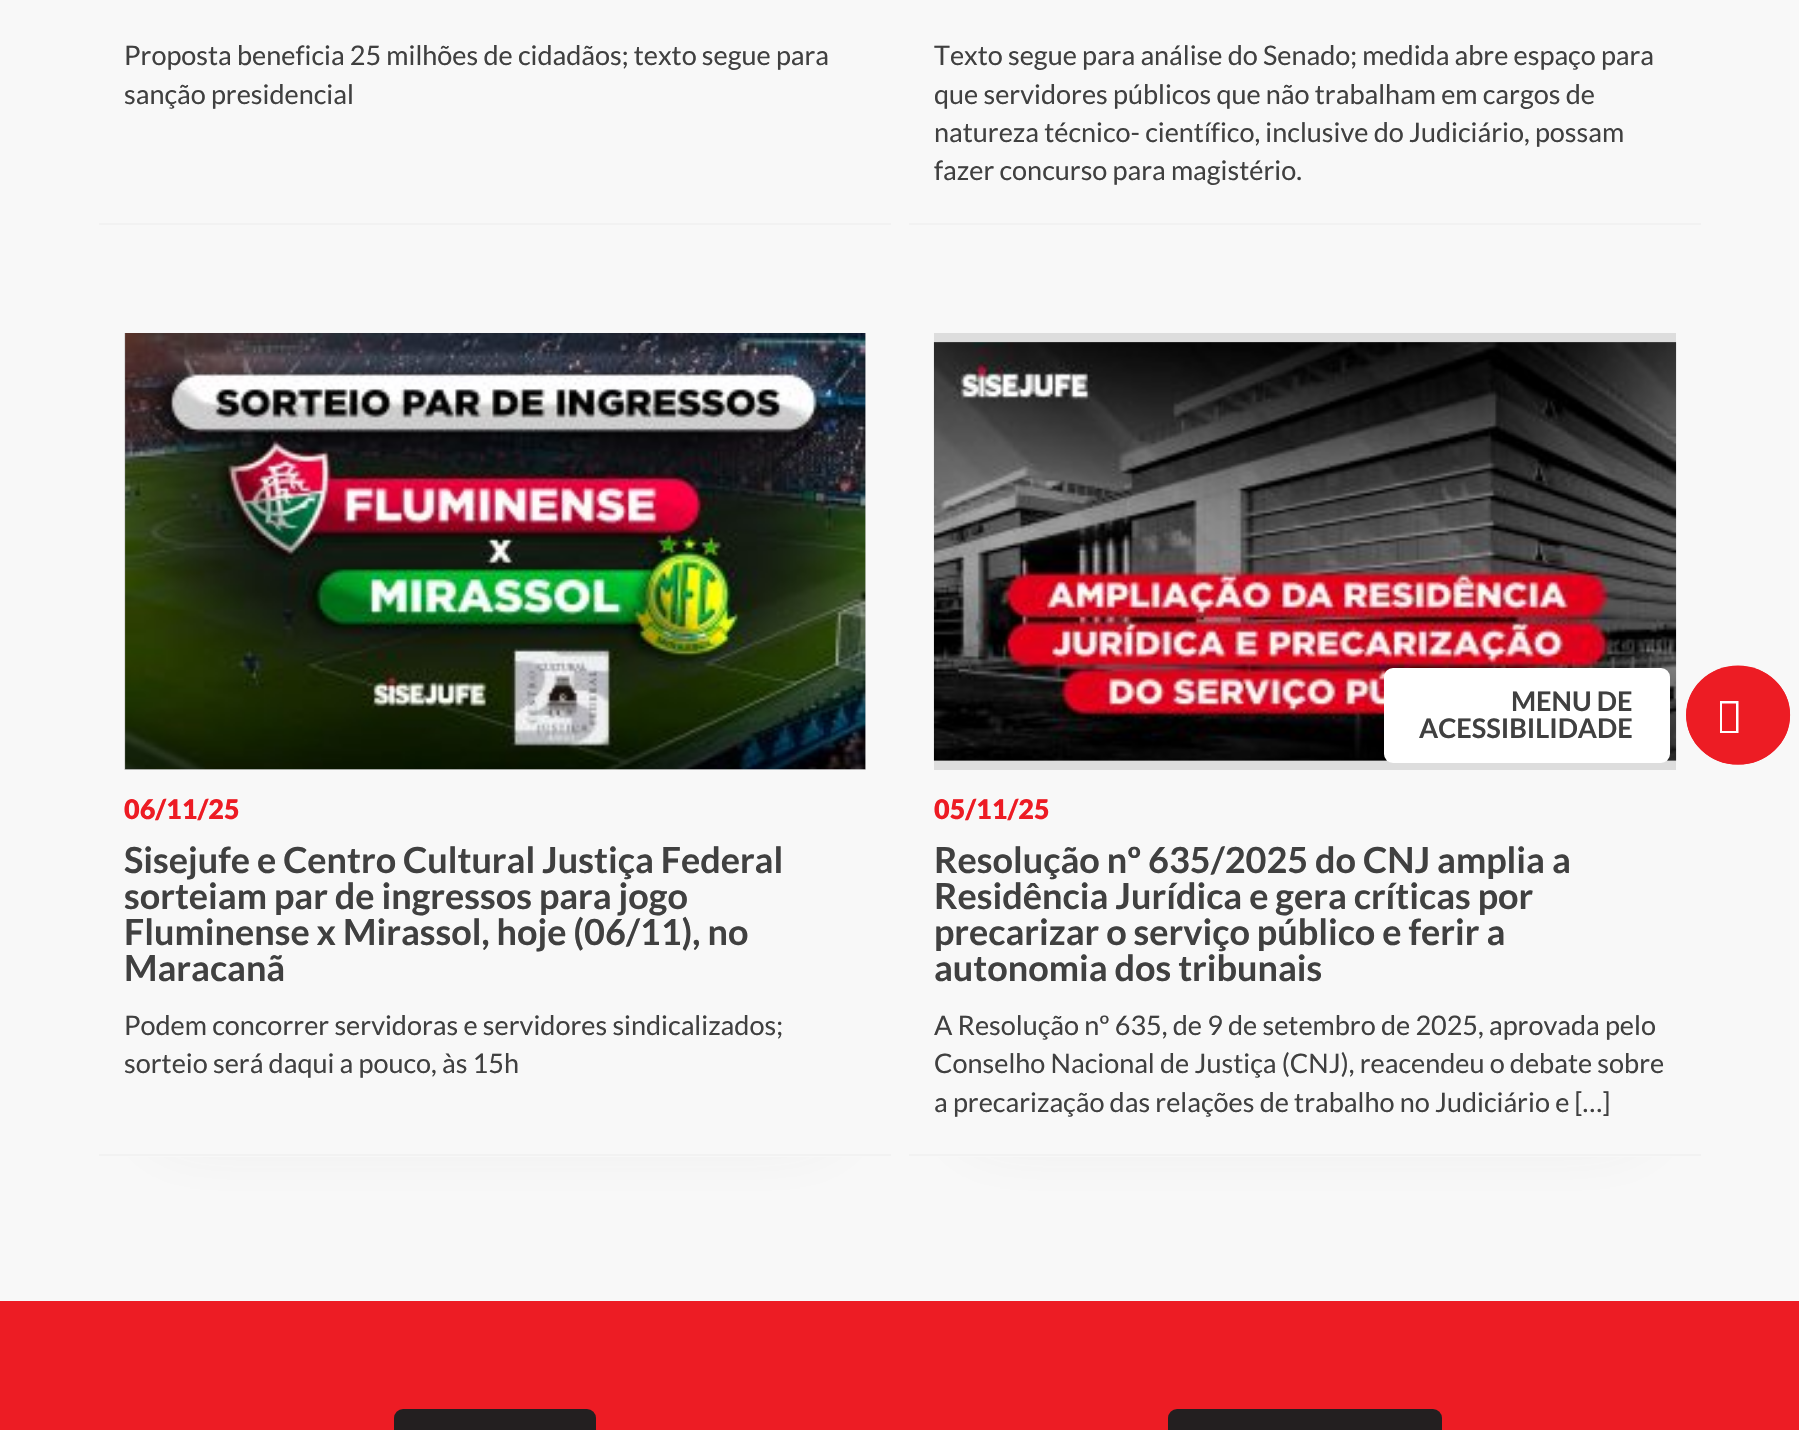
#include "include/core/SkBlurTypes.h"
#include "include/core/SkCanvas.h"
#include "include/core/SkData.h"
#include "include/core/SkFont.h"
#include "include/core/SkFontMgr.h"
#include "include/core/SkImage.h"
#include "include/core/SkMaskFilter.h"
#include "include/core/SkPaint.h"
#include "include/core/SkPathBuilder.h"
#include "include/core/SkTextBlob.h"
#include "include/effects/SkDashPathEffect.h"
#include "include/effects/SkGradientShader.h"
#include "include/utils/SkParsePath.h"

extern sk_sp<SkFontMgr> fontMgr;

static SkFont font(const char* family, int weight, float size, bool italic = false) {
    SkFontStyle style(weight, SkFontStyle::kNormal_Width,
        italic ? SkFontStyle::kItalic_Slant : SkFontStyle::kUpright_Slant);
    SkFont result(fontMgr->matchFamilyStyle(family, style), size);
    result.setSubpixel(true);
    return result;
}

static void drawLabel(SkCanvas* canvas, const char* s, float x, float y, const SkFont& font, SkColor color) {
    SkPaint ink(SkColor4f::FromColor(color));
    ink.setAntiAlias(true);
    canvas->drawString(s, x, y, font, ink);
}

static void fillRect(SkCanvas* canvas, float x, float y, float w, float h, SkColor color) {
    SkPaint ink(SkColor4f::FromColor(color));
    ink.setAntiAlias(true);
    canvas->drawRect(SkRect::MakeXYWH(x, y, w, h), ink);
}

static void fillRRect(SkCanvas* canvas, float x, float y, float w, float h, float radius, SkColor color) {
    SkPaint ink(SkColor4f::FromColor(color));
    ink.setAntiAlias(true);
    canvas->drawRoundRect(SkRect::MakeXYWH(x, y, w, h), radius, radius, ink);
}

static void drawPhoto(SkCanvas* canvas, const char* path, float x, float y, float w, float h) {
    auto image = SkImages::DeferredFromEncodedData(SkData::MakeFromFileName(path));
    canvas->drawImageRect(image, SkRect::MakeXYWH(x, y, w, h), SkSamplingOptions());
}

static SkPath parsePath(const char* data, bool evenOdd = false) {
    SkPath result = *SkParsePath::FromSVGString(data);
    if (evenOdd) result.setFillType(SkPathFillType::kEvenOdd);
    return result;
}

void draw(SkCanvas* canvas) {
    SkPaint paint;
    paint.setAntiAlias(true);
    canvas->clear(0xFFF8F8F8);
    fillRect(canvas, 99, 223, 792, 2, 0xFFF2F2F2);
    SkFont font1 = font("Lato", 400, 27);
    drawLabel(canvas, "Proposta beneficia 25 milhões de cidadãos; texto segue para", 124, 65, font1, 0xFF404040);
    drawLabel(canvas, "sanção presidencial", 124, 104, font1, 0xFF404040);
    fillRect(canvas, 909, 223, 792, 2, 0xFFF2F2F2);
    drawLabel(canvas, "Texto segue para análise do Senado; medida abre espaço para", 934, 65, font1, 0xFF404040);
    drawLabel(canvas, "que servidores públicos que não trabalham em cargos de", 934, 104, font1, 0xFF404040);
    drawLabel(canvas, "natureza técnico- científico, inclusive do Judiciário, possam", 934, 142, font1, 0xFF404040);
    drawLabel(canvas, "fazer concurso para magistério.", 934, 180, font1, 0xFF404040);
    paint.setColor(0x1A404040);
    paint.setMaskFilter(SkMaskFilter::MakeBlur(kNormal_SkBlurStyle, 34));
    canvas->drawRect(SkRect::MakeXYWH(162, 378, 666, 752), paint);
    paint.setMaskFilter(nullptr);
    fillRRect(canvas, 90, 261, 810, 896, 18, 0xFFF8F8F8);
    fillRect(canvas, 99, 1154, 792, 2, 0xFFF2F2F2);
    fillRect(canvas, 124, 333, 742, 437, 0xFFDDDDDD);
    drawPhoto(canvas, "assets/img1.png", 125, 333, 741, 437);
    SkFont font2 = font("Lato", 900, 27);
    drawLabel(canvas, "06/11/25", 124, 819, font2, 0xFFED1C24);
    SkFont font3 = font("Lato", 700, 36);
    drawLabel(canvas, "Sisejufe e Centro Cultural Justiça Federal", 124, 873, font3, 0xFF404040);
    drawLabel(canvas, "sorteiam par de ingressos para jogo", 124, 909, font3, 0xFF404040);
    drawLabel(canvas, "Fluminense x Mirassol, hoje (06/11), no", 124, 945, font3, 0xFF404040);
    drawLabel(canvas, "Maracanã", 124, 981, font3, 0xFF404040);
    drawLabel(canvas, "Podem concorrer servidoras e servidores sindicalizados;", 124, 1035, font1, 0xFF404040);
    drawLabel(canvas, "sorteio será daqui a pouco, às 15h", 124, 1073, font1, 0xFF404040);
    paint.setMaskFilter(SkMaskFilter::MakeBlur(kNormal_SkBlurStyle, 34));
    canvas->drawRect(SkRect::MakeXYWH(972, 378, 666, 752), paint);
    paint.setMaskFilter(nullptr);
    fillRRect(canvas, 900, 261, 810, 896, 18, 0xFFF8F8F8);
    fillRect(canvas, 909, 1154, 792, 2, 0xFFF2F2F2);
    fillRect(canvas, 934, 333, 742, 437, 0xFFDDDDDD);
    drawPhoto(canvas, "assets/img2.png", 933, 342, 744, 419);
    drawLabel(canvas, "05/11/25", 934, 819, font2, 0xFFED1C24);
    drawLabel(canvas, "Resolução nº 635/2025 do CNJ amplia a", 934, 873, font3, 0xFF404040);
    drawLabel(canvas, "Residência Jurídica e gera críticas por", 934, 909, font3, 0xFF404040);
    drawLabel(canvas, "precarizar o serviço público e ferir a", 934, 945, font3, 0xFF404040);
    drawLabel(canvas, "autonomia dos tribunais", 934, 981, font3, 0xFF404040);
    drawLabel(canvas, "A Resolução nº 635, de 9 de setembro de 2025, aprovada pelo", 934, 1035, font1, 0xFF404040);
    drawLabel(canvas, "Conselho Nacional de Justiça (CNJ), reacendeu o debate sobre", 934, 1073, font1, 0xFF404040);
    drawLabel(canvas, "a precarização das relações de trabalho no Judiciário e […]", 934, 1112, font1, 0xFF404040);
    paint.setColor(0xFFED1C24);
    canvas->drawOval(SkRect::MakeXYWH(1686, 665.5f, 104, 99), paint);
    paint.setStroke(true);
    paint.setStrokeWidth(2.2f);
    canvas->drawPath(parsePath("M1738 667C1766 667 1789 688.5 1789 715C1789 742 1766 763.5 1738 763.5C1710 763.5 1687.5 742 1687.5 715C1687.5 688.5 1710 667 1738 667Z"), paint);
    fillRRect(canvas, 1384, 668, 286, 95, 9, 0xFFFFFFFF);
    SkFont font4 = font("Lato", 700, 27);
    drawLabel(canvas, "MENU DE", 1511, 711, font4, 0xFF404040);
    drawLabel(canvas, "ACESSIBILIDADE", 1419, 738, font4, 0xFF404040);
    paint.setStroke(false);
    paint.setColor(0xFFFFFFFF);
    canvas->drawPath(parsePath("M1720 733V701H1738.5V733ZM1722 731H1736V703.5H1722Z"), paint);
    fillRect(canvas, 0, 1301, 1799, 129, 0xFFED1C24);
    fillRRect(canvas, 394, 1409, 202, 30, 9, 0xFF231F20);
    fillRRect(canvas, 1168, 1409, 274, 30, 9, 0xFF231F20);
}
